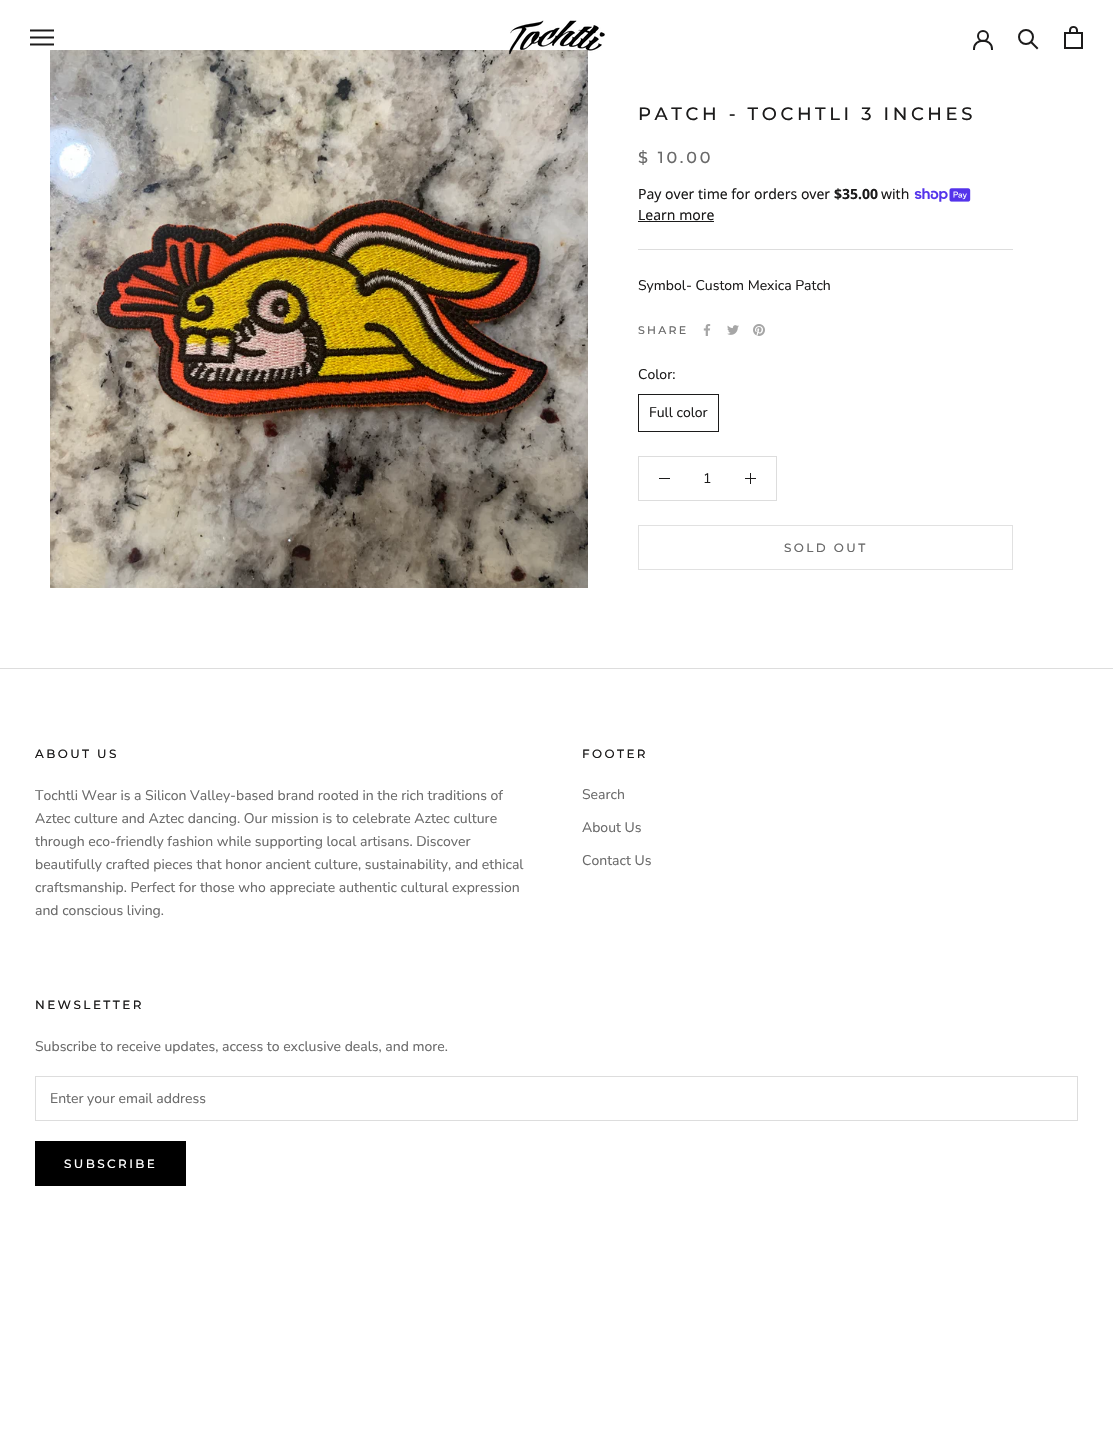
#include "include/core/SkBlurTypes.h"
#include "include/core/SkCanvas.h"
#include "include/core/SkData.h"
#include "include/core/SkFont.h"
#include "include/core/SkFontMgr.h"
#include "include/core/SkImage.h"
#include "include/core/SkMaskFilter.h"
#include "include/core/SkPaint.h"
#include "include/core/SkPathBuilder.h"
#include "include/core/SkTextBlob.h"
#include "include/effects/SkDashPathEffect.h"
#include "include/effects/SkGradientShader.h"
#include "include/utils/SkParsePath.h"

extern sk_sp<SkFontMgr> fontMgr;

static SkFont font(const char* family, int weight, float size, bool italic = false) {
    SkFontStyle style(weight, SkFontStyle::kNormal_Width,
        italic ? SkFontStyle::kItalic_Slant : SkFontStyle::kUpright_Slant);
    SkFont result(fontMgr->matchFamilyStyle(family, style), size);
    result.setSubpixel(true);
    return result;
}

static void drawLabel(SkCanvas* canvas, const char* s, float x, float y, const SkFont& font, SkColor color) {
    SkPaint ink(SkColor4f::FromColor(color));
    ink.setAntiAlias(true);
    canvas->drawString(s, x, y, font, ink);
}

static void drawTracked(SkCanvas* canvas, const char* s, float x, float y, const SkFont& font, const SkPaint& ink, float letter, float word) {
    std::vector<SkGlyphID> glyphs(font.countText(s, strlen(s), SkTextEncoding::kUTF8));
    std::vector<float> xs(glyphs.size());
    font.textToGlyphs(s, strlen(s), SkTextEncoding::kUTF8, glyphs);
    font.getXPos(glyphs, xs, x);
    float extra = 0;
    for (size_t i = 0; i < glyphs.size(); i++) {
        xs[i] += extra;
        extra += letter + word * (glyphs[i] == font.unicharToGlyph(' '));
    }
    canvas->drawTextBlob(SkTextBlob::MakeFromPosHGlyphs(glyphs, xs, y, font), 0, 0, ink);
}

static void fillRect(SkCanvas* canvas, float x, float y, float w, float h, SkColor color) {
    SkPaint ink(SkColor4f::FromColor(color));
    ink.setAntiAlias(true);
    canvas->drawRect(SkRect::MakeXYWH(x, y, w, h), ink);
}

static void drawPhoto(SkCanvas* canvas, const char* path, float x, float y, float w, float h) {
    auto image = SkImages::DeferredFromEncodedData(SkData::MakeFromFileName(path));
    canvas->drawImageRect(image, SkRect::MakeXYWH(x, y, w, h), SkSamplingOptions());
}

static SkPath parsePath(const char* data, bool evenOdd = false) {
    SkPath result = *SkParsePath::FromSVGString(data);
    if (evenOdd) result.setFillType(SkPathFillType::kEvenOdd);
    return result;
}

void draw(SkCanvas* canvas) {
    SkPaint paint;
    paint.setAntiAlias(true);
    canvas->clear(0xFFFFFFFF);
    drawPhoto(canvas, "assets/img1.png", 30, 29, 24, 17);
    drawPhoto(canvas, "assets/img4.png", 50, 50, 538, 538);
    drawPhoto(canvas, "assets/img2.png", 509, 20, 96, 35);
    paint.setStroke(true);
    paint.setStrokeWidth(2);
    paint.setStrokeCap(SkPaint::kSquare_Cap);
    paint.setColor(0xFF1C1B1B);
    canvas->drawPath(parsePath("M974 49C974 38 992 38 992 49"), paint);
    paint.setStrokeCap(SkPaint::kButt_Cap);
    canvas->drawCircle(983, 36, 5, paint);
    paint.setStrokeCap(SkPaint::kSquare_Cap);
    canvas->drawPath(parsePath("M1037 48L1031.5 42.5"), paint);
    paint.setStrokeCap(SkPaint::kButt_Cap);
    canvas->drawCircle(1026, 37, 7, paint);
    drawPhoto(canvas, "assets/img3.png", 1064, 26, 19, 23);
    fillRect(canvas, 638, 249, 375, 1, 0xFFDDDDDD);
    SkFont font1 = font("Montserrat", 500, 18);
    paint.setStroke(false);
    drawTracked(canvas, "PATCH - TOCHTLI 3 INCHES", 638, 120, font1, paint, 3.6f, 0);
    SkFont font2 = font("Montserrat", 500, 16);
    paint.setColor(0xFF6A6A6A);
    drawTracked(canvas, "$ 10.00", 638, 163, font2, paint, 2.75f, 0);
    SkFont font3 = font("Noto Sans", 400, 14);
    drawLabel(canvas, "Pay over time for orders over", 638, 199, font3, 0xFF1C1B1B);
    SkFont font4 = font("Noto Sans", 700, 14);
    drawLabel(canvas, "$35.00", 834, 199, font4, 0xFF1C1B1B);
    drawLabel(canvas, "with", 881, 199, font3, 0xFF1C1B1B);
    drawPhoto(canvas, "assets/img5.png", 914, 188, 57, 14);
    drawLabel(canvas, "Learn more", 638, 220, font3, 0xFF1C1B1B);
    fillRect(canvas, 638, 221, 76, 1, 0xFF1C1B1B);
    SkFont font5 = font("Nunito Sans", 400, 14);
    drawLabel(canvas, "Symbol- Custom Mexica Patch", 638, 290, font5, 0xFF1C1B1B);
    SkFont font6 = font("Montserrat", 500, 11);
    drawTracked(canvas, "SHARE", 638, 334, font6, paint, 2.25f, 0);
    drawPhoto(canvas, "assets/img6.png", 703, 324, 8, 12);
    drawPhoto(canvas, "assets/img7.png", 727, 325, 12, 10);
    drawPhoto(canvas, "assets/img8.png", 753, 324, 12, 12);
    drawLabel(canvas, "Color:", 638, 379, font5, 0xFF1C1B1B);
    paint.setStroke(true);
    paint.setStrokeWidth(1);
    paint.setColor(0xFF1C1B1B);
    canvas->drawRect(SkRect::MakeXYWH(638.5f, 394.5f, 80, 37), paint);
    drawLabel(canvas, "Full color", 649, 417, font5, 0xFF1C1B1B);
    paint.setColor(0xFFDDDDDD);
    canvas->drawRect(SkRect::MakeXYWH(638.5f, 456.5f, 138, 44), paint);
    fillRect(canvas, 659, 478, 11, 1, 0xFF1C1B1B);
    drawLabel(canvas, "1", 703, 483, font5, 0xFF1C1B1B);
    fillRect(canvas, 750, 473, 1, 11, 0xFF1C1B1B);
    fillRect(canvas, 745, 478, 11, 1, 0xFF1C1B1B);
    paint.setColor(0xFFE1E1E1);
    canvas->drawRect(SkRect::MakeXYWH(638.5f, 525.5f, 374, 44), paint);
    SkFont font7 = font("Montserrat", 500, 12);
    paint.setStroke(false);
    paint.setColor(0xFF6A6A6A);
    drawTracked(canvas, "SOLD OUT", 784, 552, font7, paint, 2.4f, 0);
    fillRect(canvas, 0, 668, 1113, 1, 0xFFDDDDDD);
    paint.setColor(0xFF1C1B1B);
    drawTracked(canvas, "ABOUT US", 35, 758, font7, paint, 2.4f, 0);
    drawLabel(canvas, "Tochtli Wear is a Silicon Valley-based brand rooted in the rich traditions of", 35, 800, font5, 0xFF6A6A6A);
    drawLabel(canvas, "Aztec culture and Aztec dancing. Our mission is to celebrate Aztec culture", 35, 823, font5, 0xFF6A6A6A);
    drawLabel(canvas, "through eco-friendly fashion while supporting local artisans. Discover", 35, 846, font5, 0xFF6A6A6A);
    drawLabel(canvas, "beautifully crafted pieces that honor ancient culture, sustainability, and ethical", 35, 869, font5, 0xFF6A6A6A);
    drawLabel(canvas, "craftsmanship. Perfect for those who appreciate authentic cultural expression", 35, 892, font5, 0xFF6A6A6A);
    drawLabel(canvas, "and conscious living.", 35, 915, font5, 0xFF6A6A6A);
    drawTracked(canvas, "FOOTER", 582, 758, font7, paint, 2.4f, 0);
    drawLabel(canvas, "Search", 582, 799, font5, 0xFF6A6A6A);
    drawLabel(canvas, "About Us", 582, 832, font5, 0xFF6A6A6A);
    drawLabel(canvas, "Contact Us", 582, 865, font5, 0xFF6A6A6A);
    drawTracked(canvas, "NEWSLETTER", 35, 1009, font7, paint, 2.4f, 0);
    drawLabel(canvas, "Subscribe to receive updates, access to exclusive deals, and more.", 35, 1051, font5, 0xFF6A6A6A);
    paint.setStroke(true);
    paint.setColor(0xFFDDDDDD);
    canvas->drawRect(SkRect::MakeXYWH(35.5f, 1076.5f, 1042, 44), paint);
    drawLabel(canvas, "Enter your email address", 50, 1103, font5, 0xFF6A6A6A);
    paint.setColor(0xFF000000);
    canvas->drawRect(SkRect::MakeXYWH(35.5f, 1141.5f, 150, 44), paint);
    fillRect(canvas, 36, 1142, 149, 43, 0xFF000000);
    paint.setStroke(false);
    paint.setColor(0xFFFFFFFF);
    drawTracked(canvas, "SUBSCRIBE", 64, 1168, font7, paint, 2.4f, 0);
}
